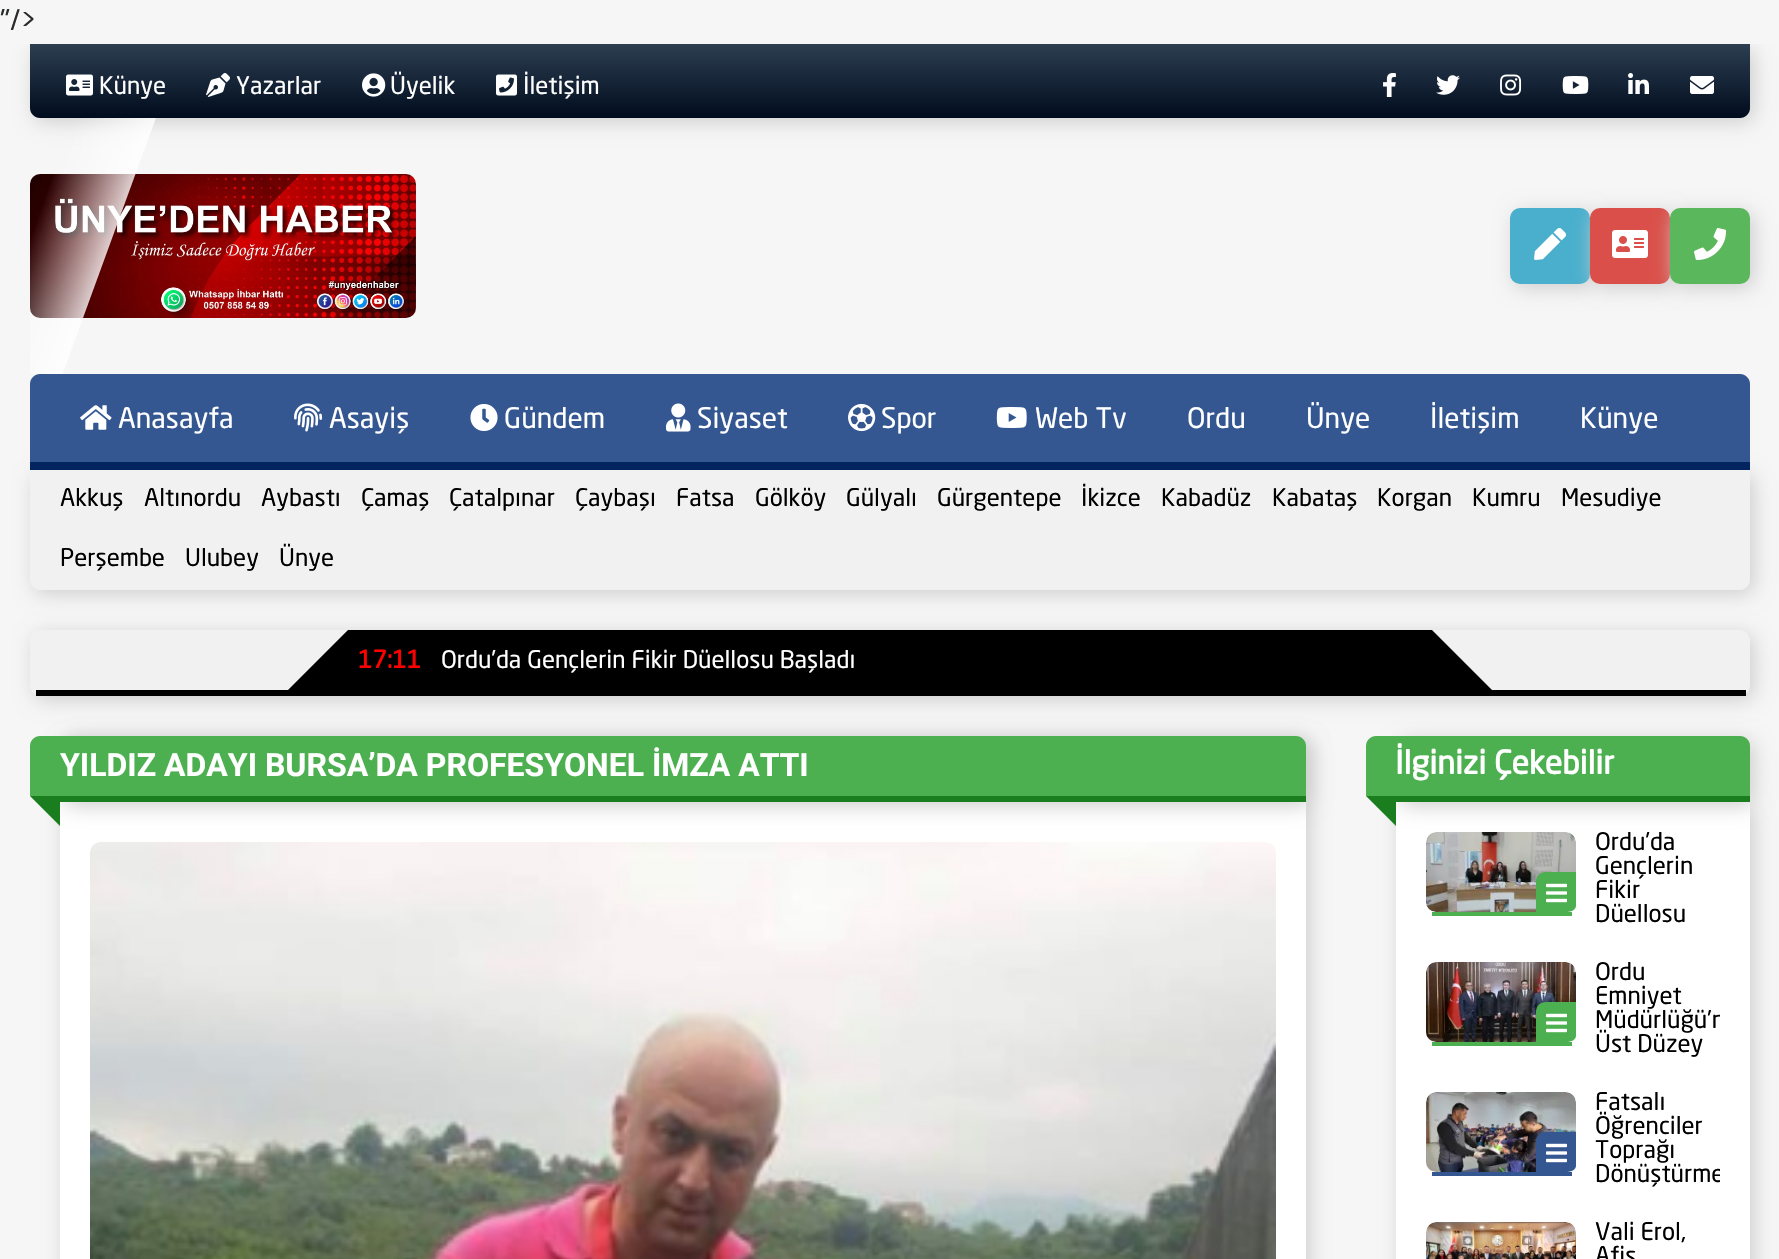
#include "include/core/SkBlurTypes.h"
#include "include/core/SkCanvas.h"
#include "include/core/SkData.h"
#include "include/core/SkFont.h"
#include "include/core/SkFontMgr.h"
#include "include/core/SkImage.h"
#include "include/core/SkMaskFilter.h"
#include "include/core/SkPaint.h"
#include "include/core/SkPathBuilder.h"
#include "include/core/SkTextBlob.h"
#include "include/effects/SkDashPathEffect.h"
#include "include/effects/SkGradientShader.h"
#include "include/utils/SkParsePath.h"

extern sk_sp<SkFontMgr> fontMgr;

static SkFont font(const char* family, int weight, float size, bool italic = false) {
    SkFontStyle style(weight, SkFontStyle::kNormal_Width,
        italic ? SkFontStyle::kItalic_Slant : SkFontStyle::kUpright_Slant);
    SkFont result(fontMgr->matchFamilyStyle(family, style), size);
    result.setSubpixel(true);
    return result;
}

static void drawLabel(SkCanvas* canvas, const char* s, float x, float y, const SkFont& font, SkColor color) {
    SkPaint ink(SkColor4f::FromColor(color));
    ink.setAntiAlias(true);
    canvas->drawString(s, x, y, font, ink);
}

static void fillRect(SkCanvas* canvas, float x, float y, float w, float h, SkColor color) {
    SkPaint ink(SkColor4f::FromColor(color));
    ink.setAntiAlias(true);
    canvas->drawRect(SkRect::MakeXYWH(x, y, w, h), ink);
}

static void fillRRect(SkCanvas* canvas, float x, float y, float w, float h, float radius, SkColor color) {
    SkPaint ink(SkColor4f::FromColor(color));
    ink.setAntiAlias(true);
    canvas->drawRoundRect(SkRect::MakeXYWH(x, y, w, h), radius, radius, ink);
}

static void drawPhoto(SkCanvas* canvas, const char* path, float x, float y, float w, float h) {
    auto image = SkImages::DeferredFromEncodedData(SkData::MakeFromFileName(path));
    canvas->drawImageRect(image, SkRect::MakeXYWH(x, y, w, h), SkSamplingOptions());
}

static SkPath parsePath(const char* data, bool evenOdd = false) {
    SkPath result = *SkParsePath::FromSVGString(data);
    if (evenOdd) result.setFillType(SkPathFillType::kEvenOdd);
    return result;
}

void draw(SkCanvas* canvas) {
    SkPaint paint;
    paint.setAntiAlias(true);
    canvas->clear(0xFFF6F6F6);
    SkFont font1 = font("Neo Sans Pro", 400, 28);
    drawLabel(canvas, "\"/>", 0, 30, font1, 0xFF292B2C);
    canvas->save();
    canvas->clipRect(SkRect::MakeXYWH(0, 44, 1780, 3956));
    paint.setColor(0xFFCECECE);
    paint.setMaskFilter(SkMaskFilter::MakeBlur(kNormal_SkBlurStyle, 10));
    canvas->drawRoundRect(SkRect::MakeXYWH(34, 48, 1720, 74), 10, 10, paint);
    paint.setMaskFilter(nullptr);
    canvas->restore();
    {
        const SkColor colors[] = {0xFF2C3E50, 0xFF000C1E};
        const float stops[] = {0, 1};
        const SkPoint ends[] = {{890, 44}, {890, 118}};
        paint.setShader(SkGradientShader::MakeLinear(ends, colors, stops, 2, SkTileMode::kClamp));
        paint.setAlpha(255);
    }
    canvas->drawPath(parsePath("M30 44H1750V108C1750 113.5 1745.5 118 1740 118H40C34.5 118 30 113.5 30 108Z"), paint);
    drawPhoto(canvas, "assets/img1.png", 66, 74, 27, 22);
    SkFont font2 = font("Neo Sans Pro", 400, 24);
    drawLabel(canvas, "Künye", 99, 94, font2, 0xFFFFFFFF);
    drawPhoto(canvas, "assets/img2.png", 206, 73, 24, 24);
    drawLabel(canvas, "Yazarlar", 236, 94, font2, 0xFFFFFFFF);
    drawPhoto(canvas, "assets/img3.png", 362, 73, 24, 24);
    drawLabel(canvas, "Üyelik", 390, 94, font2, 0xFFFFFFFF);
    drawPhoto(canvas, "assets/img4.png", 496, 74, 21, 22);
    drawLabel(canvas, "İletişim", 523, 94, font2, 0xFFFFFFFF);
    drawPhoto(canvas, "assets/img5.png", 1383, 73, 13, 24);
    drawPhoto(canvas, "assets/img6.png", 1436, 75, 24, 20);
    drawPhoto(canvas, "assets/img7.png", 1500, 74, 22, 22);
    drawPhoto(canvas, "assets/img8.png", 1562, 76, 27, 18);
    drawPhoto(canvas, "assets/img9.png", 1628, 73, 21, 21);
    drawPhoto(canvas, "assets/img10.png", 1690, 76, 24, 18);
    drawPhoto(canvas, "assets/img11.png", 30, 174, 386, 144);
    canvas->save();
    canvas->clipRect(SkRect::MakeXYWH(30, 118, 386, 256));
    {
        const SkColor colors[] = {0x00FFFFFF, 0xCCFFFFFF};
        const float stops[] = {0, 1};
        const SkPoint ends[] = {{32, 233}, {105, 259}};
        paint.setShader(SkGradientShader::MakeLinear(ends, colors, stops, 2, SkTileMode::kClamp));
        paint.setAlpha(255);
    }
    canvas->drawPath(parsePath("M85 89L157 115L52 403L-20 377Z"), paint);
    canvas->restore();
    paint.setShader(nullptr);
    paint.setColor(0xFFCECECE);
    paint.setMaskFilter(SkMaskFilter::MakeBlur(kNormal_SkBlurStyle, 10));
    canvas->drawRoundRect(SkRect::MakeXYWH(1514, 212, 80, 76), 10, 10, paint);
    paint.setMaskFilter(nullptr);
    fillRRect(canvas, 1510, 208, 80, 76, 10, 0xFF49AFCD);
    drawPhoto(canvas, "assets/img12.png", 1534, 228, 32, 32);
    paint.setMaskFilter(SkMaskFilter::MakeBlur(kNormal_SkBlurStyle, 10));
    canvas->drawRoundRect(SkRect::MakeXYWH(1594, 212, 80, 76), 10, 10, paint);
    paint.setMaskFilter(nullptr);
    fillRRect(canvas, 1590, 208, 80, 76, 10, 0xFFDA4F49);
    drawPhoto(canvas, "assets/img13.png", 1612, 230, 36, 28);
    paint.setMaskFilter(SkMaskFilter::MakeBlur(kNormal_SkBlurStyle, 10));
    canvas->drawRoundRect(SkRect::MakeXYWH(1674, 212, 80, 76), 10, 10, paint);
    paint.setMaskFilter(nullptr);
    fillRRect(canvas, 1670, 208, 80, 76, 10, 0xFF5BB75B);
    drawPhoto(canvas, "assets/img14.png", 1694, 228, 33, 32);
    paint.setMaskFilter(SkMaskFilter::MakeBlur(kNormal_SkBlurStyle, 10));
    canvas->drawRoundRect(SkRect::MakeXYWH(34, 474, 1720, 120), 10, 10, paint);
    paint.setMaskFilter(nullptr);
    paint.setColor(0xFF345792);
    canvas->drawPath(parsePath("M40 374H1740C1745.5 374 1750 378.5 1750 384V470H30V384C30 378.5 34.5 374 40 374Z"), paint);
    fillRect(canvas, 30, 462, 1720, 8, 0xFF022560);
    drawPhoto(canvas, "assets/img15.png", 80, 405, 32, 25);
    drawLabel(canvas, "Anasayfa", 118, 428, font1, 0xFFFFFFFF);
    drawPhoto(canvas, "assets/img16.png", 294, 403, 29, 29);
    drawLabel(canvas, "Asayiş", 329, 428, font1, 0xFFFFFFFF);
    drawPhoto(canvas, "assets/img17.png", 470, 404, 28, 27);
    drawLabel(canvas, "Gündem", 504, 428, font1, 0xFFFFFFFF);
    drawPhoto(canvas, "assets/img18.png", 666, 403, 25, 29);
    drawLabel(canvas, "Siyaset", 697, 428, font1, 0xFFFFFFFF);
    drawPhoto(canvas, "assets/img19.png", 848, 403, 28, 29);
    drawLabel(canvas, "Spor", 881, 428, font1, 0xFFFFFFFF);
    drawPhoto(canvas, "assets/img20.png", 996, 407, 31, 21);
    drawLabel(canvas, "Web Tv", 1035, 428, font1, 0xFFFFFFFF);
    drawLabel(canvas, "Ordu", 1187, 428, font1, 0xFFFFFFFF);
    drawLabel(canvas, "Ünye", 1306, 428, font1, 0xFFFFFFFF);
    drawLabel(canvas, "İletişim", 1430, 428, font1, 0xFFFFFFFF);
    drawLabel(canvas, "Künye", 1580, 428, font1, 0xFFFFFFFF);
    paint.setColor(0xFFF1F1F1);
    canvas->drawPath(parsePath("M30 470H1750V580C1750 585.5 1745.5 590 1740 590H40C34.5 590 30 585.5 30 580Z"), paint);
    drawLabel(canvas, "Akkuş", 60, 506, font2, 0xFF000000);
    drawLabel(canvas, "Altınordu", 144, 506, font2, 0xFF000000);
    drawLabel(canvas, "Aybastı", 261, 506, font2, 0xFF000000);
    drawLabel(canvas, "Çamaş", 361, 506, font2, 0xFF000000);
    drawLabel(canvas, "Çatalpınar", 449, 506, font2, 0xFF000000);
    drawLabel(canvas, "Çaybaşı", 575, 506, font2, 0xFF000000);
    drawLabel(canvas, "Fatsa", 676, 506, font2, 0xFF000000);
    drawLabel(canvas, "Gölköy", 755, 506, font2, 0xFF000000);
    drawLabel(canvas, "Gülyalı", 846, 506, font2, 0xFF000000);
    drawLabel(canvas, "Gürgentepe", 937, 506, font2, 0xFF000000);
    drawLabel(canvas, "İkizce", 1081, 506, font2, 0xFF000000);
    drawLabel(canvas, "Kabadüz", 1161, 506, font2, 0xFF000000);
    drawLabel(canvas, "Kabataş", 1272, 506, font2, 0xFF000000);
    drawLabel(canvas, "Korgan", 1377, 506, font2, 0xFF000000);
    drawLabel(canvas, "Kumru", 1472, 506, font2, 0xFF000000);
    drawLabel(canvas, "Mesudiye", 1561, 506, font2, 0xFF000000);
    drawLabel(canvas, "Perşembe", 60, 566, font2, 0xFF000000);
    drawLabel(canvas, "Ulubey", 185, 566, font2, 0xFF000000);
    drawLabel(canvas, "Ünye", 279, 566, font2, 0xFF000000);
    paint.setColor(0xFFCECECE);
    paint.setMaskFilter(SkMaskFilter::MakeBlur(kNormal_SkBlurStyle, 10));
    canvas->drawRoundRect(SkRect::MakeXYWH(34, 634, 1720, 66), 10, 10, paint);
    paint.setMaskFilter(nullptr);
    fillRRect(canvas, 30, 630, 1720, 66, 10, 0xFFF1F1F1);
    fillRect(canvas, 36, 690, 1710, 6, 0xFF000000);
    fillRect(canvas, 288, 630, 1204, 60, 0xFF000000);
    paint.setColor(0xFFF1F1F1);
    canvas->drawPath(parsePath("M288 630H348L288 690Z"), paint);
    SkFont font3 = font("Neo Sans Pro", 700, 24);
    drawLabel(canvas, "17:11", 358, 668, font3, 0xFFFF0000);
    drawLabel(canvas, "Ordu’da Gençlerin Fikir Düellosu Başladı", 441, 668, font2, 0xFFFFFFFF);
    canvas->drawPath(parsePath("M1432 630H1492V690Z"), paint);
    paint.setColor(0xFFCECECE);
    paint.setMaskFilter(SkMaskFilter::MakeBlur(kNormal_SkBlurStyle, 10));
    canvas->drawRoundRect(SkRect::MakeXYWH(64, 740, 1246, 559), 10, 10, paint);
    paint.setMaskFilter(nullptr);
    fillRRect(canvas, 60, 736, 1246, 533, 10, 0xFFFFFFFF);
    paint.setMaskFilter(SkMaskFilter::MakeBlur(kNormal_SkBlurStyle, 10));
    canvas->drawRoundRect(SkRect::MakeXYWH(64, 740, 1246, 66), 10, 10, paint);
    paint.setMaskFilter(nullptr);
    paint.setColor(0xFF4CAF50);
    canvas->drawPath(parsePath("M60 736H1296C1301.5 736 1306 740.5 1306 746V802H60Z"), paint);
    fillRect(canvas, 60, 796, 1246, 6, 0xFF1A7D1E);
    canvas->drawPath(parsePath("M40 736H60V796H30V746C30 740.5 34.5 736 40 736Z"), paint);
    SkFont font4 = font("Roboto", 700, 32);
    drawLabel(canvas, "YILDIZ ADAYI BURSA’DA PROFESYONEL İMZA ATTI", 60, 776, font4, 0xFFFFFFFF);
    paint.setColor(0xFF1A7D1E);
    canvas->drawPath(parsePath("M30 796H60V826Z"), paint);
    drawPhoto(canvas, "assets/img21.png", 90, 842, 1186, 417);
    paint.setColor(0xFFCECECE);
    paint.setMaskFilter(SkMaskFilter::MakeBlur(kNormal_SkBlurStyle, 10));
    canvas->drawRoundRect(SkRect::MakeXYWH(1400, 806, 354, 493), 10, 10, paint);
    paint.setMaskFilter(nullptr);
    fillRect(canvas, 1396, 802, 354, 457, 0xFFFFFFFF);
    paint.setMaskFilter(SkMaskFilter::MakeBlur(kNormal_SkBlurStyle, 10));
    canvas->drawRoundRect(SkRect::MakeXYWH(1400, 740, 354, 66), 10, 10, paint);
    paint.setMaskFilter(nullptr);
    paint.setColor(0xFF4CAF50);
    canvas->drawPath(parsePath("M1396 736H1740C1745.5 736 1750 740.5 1750 746V802H1396Z"), paint);
    fillRect(canvas, 1396, 796, 354, 6, 0xFF1A7D1E);
    canvas->drawPath(parsePath("M1376 736H1396V796H1366V746C1366 740.5 1370.5 736 1376 736Z"), paint);
    SkFont font5 = font("Neo Sans Pro", 700, 32);
    drawLabel(canvas, "İlginizi Çekebilir", 1395, 774, font5, 0xFFFFFFFF);
    paint.setColor(0xFF1A7D1E);
    canvas->drawPath(parsePath("M1366 796H1396V826Z"), paint);
    fillRect(canvas, 1432, 912, 140, 4, 0xFF4CAF50);
    drawPhoto(canvas, "assets/img22.png", 1426, 832, 150, 80);
    paint.setColor(0xFF4CAF50);
    canvas->drawPath(parsePath("M1546 872C1540 872 1536 876 1536 882V912H1566C1572 912 1576 909 1576 906V872Z"), paint);
    drawPhoto(canvas, "assets/img23.png", 1546, 883, 21, 20);
    drawLabel(canvas, "Ordu’da", 1595, 850, font2, 0xFF000000);
    drawLabel(canvas, "Gençlerin", 1595, 874, font2, 0xFF000000);
    drawLabel(canvas, "Fikir", 1595, 898, font2, 0xFF000000);
    drawLabel(canvas, "Düellosu", 1595, 922, font2, 0xFF000000);
    fillRect(canvas, 1432, 1042, 140, 4, 0xFF4CAF50);
    drawPhoto(canvas, "assets/img24.png", 1426, 962, 150, 80);
    canvas->drawPath(parsePath("M1546 1002C1540 1002 1536 1006 1536 1012V1042H1566C1572 1042 1576 1039 1576 1036V1002Z"), paint);
    drawPhoto(canvas, "assets/img23.png", 1546, 1013, 21, 20);
    drawLabel(canvas, "Ordu", 1595, 980, font2, 0xFF000000);
    drawLabel(canvas, "Emniyet", 1595, 1004, font2, 0xFF000000);
    canvas->save();
    canvas->clipPath(parsePath("M1586 962H1710C1715.5 962 1720 966.5 1720 972V1052C1720 1057.5 1715.5 1062 1710 1062H1586C1580.5 1062 1576 1057.5 1576 1052V972C1576 966.5 1580.5 962 1586 962Z"), true);
    drawLabel(canvas, "Müdürlüğü’n", 1595, 1028, font2, 0xFF000000);
    canvas->restore();
    drawLabel(canvas, "Üst Düzey", 1595, 1052, font2, 0xFF000000);
    fillRect(canvas, 1432, 1172, 140, 4, 0xFF345792);
    drawPhoto(canvas, "assets/img25.png", 1426, 1092, 150, 80);
    paint.setColor(0xFF345792);
    canvas->drawPath(parsePath("M1546 1132C1540 1132 1536 1136 1536 1142V1172H1566C1572 1172 1576 1169 1576 1166V1132Z"), paint);
    drawPhoto(canvas, "assets/img26.png", 1546, 1143, 21, 20);
    drawLabel(canvas, "Fatsalı", 1595, 1110, font2, 0xFF000000);
    drawLabel(canvas, "Öğrenciler", 1595, 1134, font2, 0xFF000000);
    drawLabel(canvas, "Toprağı", 1595, 1158, font2, 0xFF000000);
    canvas->save();
    canvas->clipPath(parsePath("M1586 1092H1710C1715.5 1092 1720 1096.5 1720 1102V1182C1720 1187.5 1715.5 1192 1710 1192H1586C1580.5 1192 1576 1187.5 1576 1182V1102C1576 1096.5 1580.5 1092 1586 1092Z"), true);
    drawLabel(canvas, "Dönüştürme", 1595, 1182, font2, 0xFF000000);
    canvas->restore();
    drawPhoto(canvas, "assets/img27.png", 1426, 1222, 150, 37);
    drawLabel(canvas, "Vali Erol,", 1595, 1240, font2, 0xFF000000);
    drawLabel(canvas, "Afiş", 1595, 1264, font2, 0xFF000000);
}
